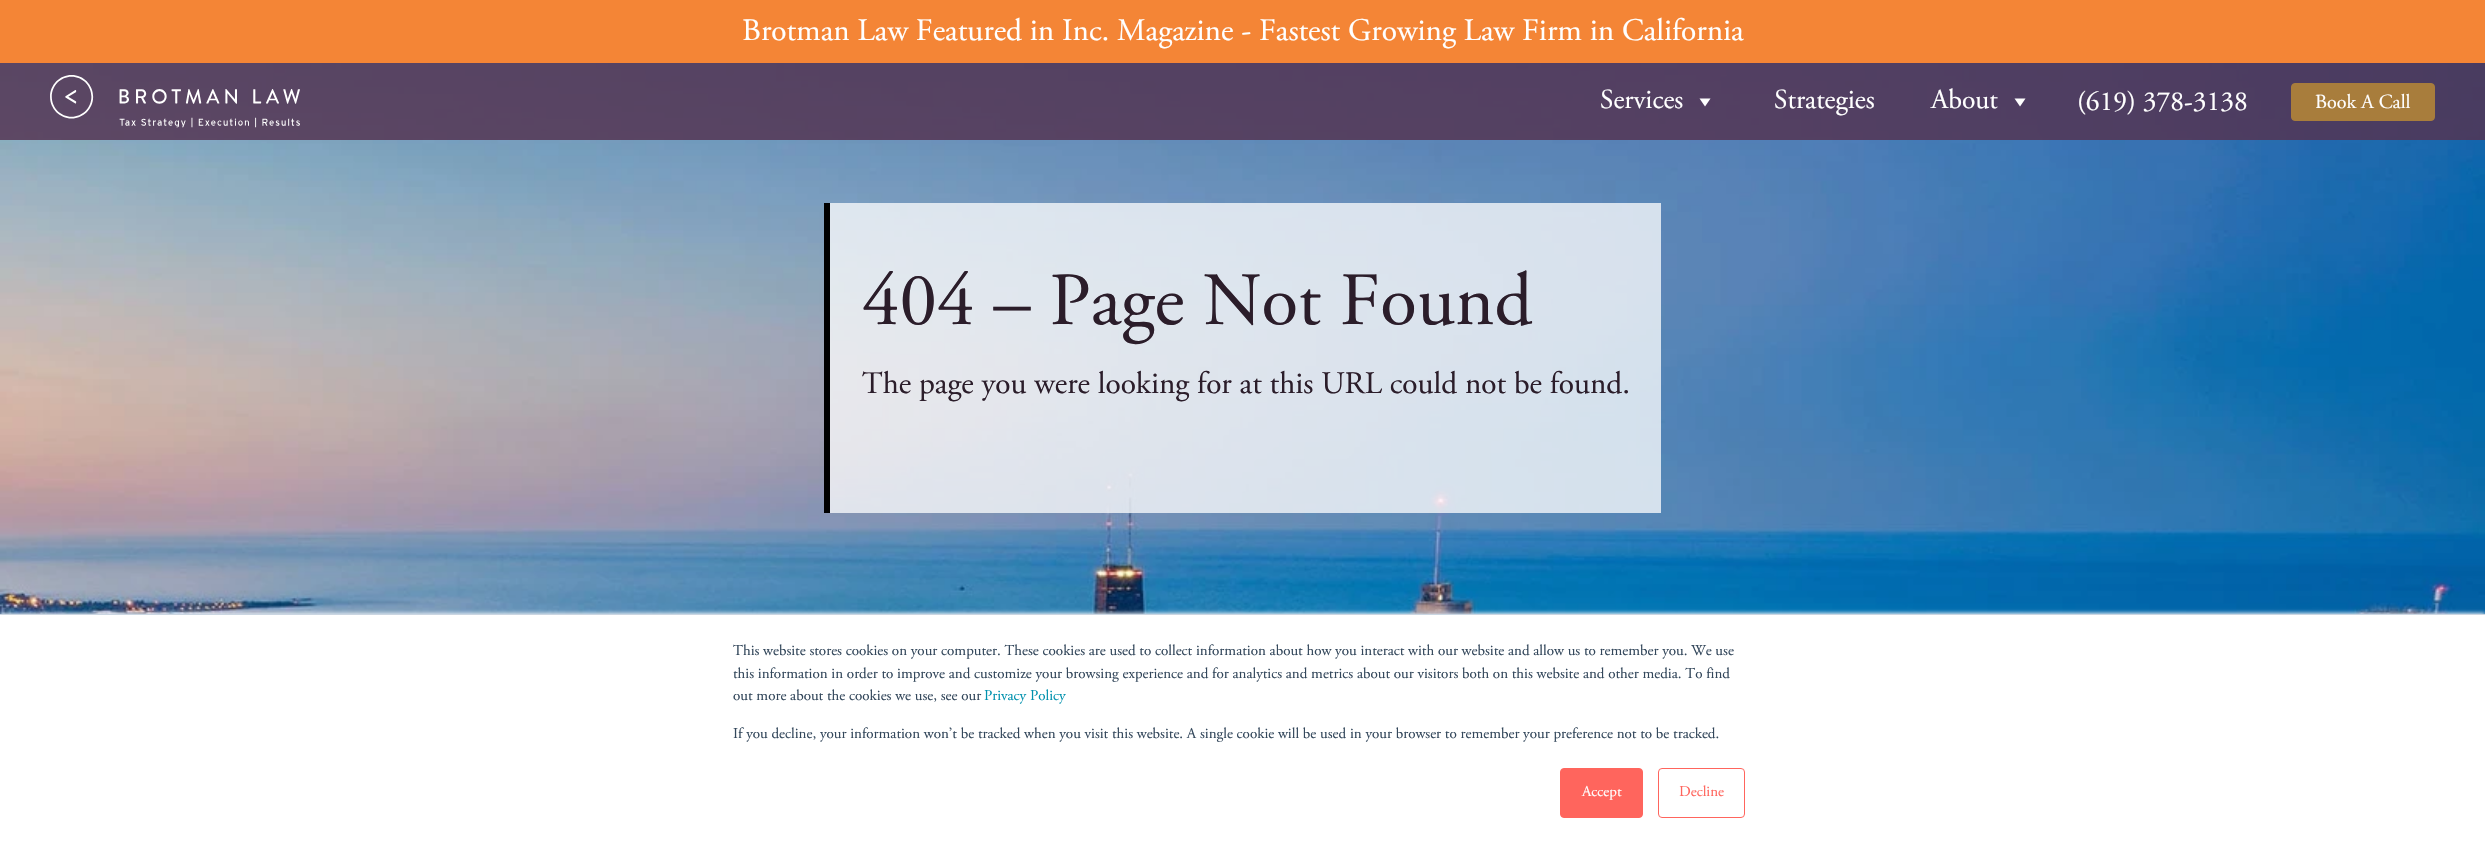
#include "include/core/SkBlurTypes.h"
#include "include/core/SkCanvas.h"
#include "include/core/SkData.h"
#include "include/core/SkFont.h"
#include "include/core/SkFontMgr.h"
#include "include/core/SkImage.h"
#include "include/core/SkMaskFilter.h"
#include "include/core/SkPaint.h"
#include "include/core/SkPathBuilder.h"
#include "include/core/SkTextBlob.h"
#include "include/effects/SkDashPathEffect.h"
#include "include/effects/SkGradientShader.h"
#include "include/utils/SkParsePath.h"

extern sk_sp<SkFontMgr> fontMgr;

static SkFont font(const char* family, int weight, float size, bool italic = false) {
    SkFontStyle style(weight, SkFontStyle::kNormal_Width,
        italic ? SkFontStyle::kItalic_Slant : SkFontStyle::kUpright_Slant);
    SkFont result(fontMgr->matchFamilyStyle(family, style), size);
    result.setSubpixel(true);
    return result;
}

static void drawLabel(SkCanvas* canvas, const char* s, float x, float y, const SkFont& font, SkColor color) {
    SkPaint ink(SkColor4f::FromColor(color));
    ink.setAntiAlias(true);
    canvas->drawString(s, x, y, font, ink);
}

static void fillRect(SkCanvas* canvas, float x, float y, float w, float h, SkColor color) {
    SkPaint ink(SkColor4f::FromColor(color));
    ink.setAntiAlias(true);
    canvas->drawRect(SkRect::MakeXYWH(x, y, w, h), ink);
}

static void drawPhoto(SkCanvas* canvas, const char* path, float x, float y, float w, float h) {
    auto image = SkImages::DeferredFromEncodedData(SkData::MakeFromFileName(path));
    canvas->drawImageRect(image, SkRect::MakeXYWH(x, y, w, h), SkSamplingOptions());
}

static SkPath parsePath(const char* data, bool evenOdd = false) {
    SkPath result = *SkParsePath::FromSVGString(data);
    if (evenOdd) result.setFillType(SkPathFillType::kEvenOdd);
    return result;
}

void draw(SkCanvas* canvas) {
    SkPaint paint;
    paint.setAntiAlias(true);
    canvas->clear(0xFFFFFFFF);
    fillRect(canvas, 0, 0, 2485, 63, 0xFFF48536);
    SkFont font1 = font("Adobe Garamond", 400, 31.25f);
    drawLabel(canvas, "Brotman Law Featured in Inc. Magazine - Fastest Growing Law Firm in California", 742, 40, font1, 0xFFFFFFFF);
    drawPhoto(canvas, "assets/img2.png", 0, 63, 2485, 551);
    fillRect(canvas, 0, 63, 2485, 77, 0xD4533351);
    drawPhoto(canvas, "assets/img1.png", 50, 75, 250, 53);
    SkFont font2 = font("Adobe Garamond", 400, 27.5f);
    drawLabel(canvas, "Services", 1600, 108, font2, 0xFFFFFFFF);
    paint.setColor(0xFFFFFFFF);
    canvas->drawPath(parsePath("M1710.5 98.5L1705 106.5L1699.5 98.5Z"), paint);
    drawLabel(canvas, "Strategies", 1774, 108, font2, 0xFFFFFFFF);
    drawLabel(canvas, "About", 1931, 108, font2, 0xFFFFFFFF);
    canvas->drawPath(parsePath("M2025.5 98.5L2020 106.5L2014.5 98.5Z"), paint);
    drawLabel(canvas, "(619) 378-3138", 2077, 110, font2, 0xFFFFFFFF);
    paint.setColor(0xFFA87D3C);
    canvas->drawRoundRect(SkRect::MakeXYWH(2291.5f, 83.5f, 143, 37), 3.5f, 3.5f, paint);
    paint.setStroke(true);
    paint.setStrokeWidth(1);
    canvas->drawRoundRect(SkRect::MakeXYWH(2291.5f, 83.5f, 143, 37), 3.5f, 3.5f, paint);
    SkFont font3 = font("Adobe Garamond", 400, 20);
    drawLabel(canvas, "Book A Call", 2315, 108, font3, 0xFFFFFFFF);
    fillRect(canvas, 830, 203, 831, 310, 0xBFFFFFFF);
    fillRect(canvas, 824, 203, 6, 310, 0xFF000000);
    SkFont font4 = font("Adobe Garamond", 400, 75);
    drawLabel(canvas, "404 – Page Not Found", 862, 324, font4, 0xFF2B1D2A);
    drawLabel(canvas, "The page you were looking for at this URL could not be found.", 862, 393, font1, 0xFF2B1D2A);
    paint.setStroke(false);
    paint.setColor(0xFFEAF0F6);
    paint.setMaskFilter(SkMaskFilter::MakeBlur(kNormal_SkBlurStyle, 2));
    canvas->drawRect(SkRect::MakeXYWH(0, 613, 2485, 236), paint);
    paint.setMaskFilter(nullptr);
    fillRect(canvas, 0, 615, 2485, 234, 0xFFFFFFFF);
    fillRect(canvas, 0, 614, 2485, 1, 0xFFCBD6E2);
    SkFont font5 = font("Adobe Garamond", 400, 15);
    drawLabel(canvas, "This website stores cookies on your computer. These cookies are used to collect information about how you interact with our website and allow us to remember you. We use", 733, 655, font5, 0xFF33475B);
    drawLabel(canvas, "this information in order to improve and customize your browsing experience and for analytics and metrics about our visitors both on this website and other media. To find", 733, 678, font5, 0xFF33475B);
    drawLabel(canvas, "out more about the cookies we use, see our", 733, 700, font5, 0xFF33475B);
    drawLabel(canvas, "Privacy Policy", 984, 700, font5, 0xFF0091AE);
    drawLabel(canvas, "If you decline, your information won’t be tracked when you visit this website. A single cookie will be used in your browser to remember your preference not to be tracked.", 733, 738, font5, 0xFF33475B);
    paint.setColor(0xFFFF655D);
    canvas->drawRoundRect(SkRect::MakeXYWH(1560.5f, 768.5f, 82, 49), 3.5f, 3.5f, paint);
    paint.setStroke(true);
    canvas->drawRoundRect(SkRect::MakeXYWH(1560.5f, 768.5f, 82, 49), 3.5f, 3.5f, paint);
    drawLabel(canvas, "Accept", 1582, 796, font5, 0xFFFFFFFF);
    canvas->drawRoundRect(SkRect::MakeXYWH(1658.5f, 768.5f, 86, 49), 3.5f, 3.5f, paint);
    drawLabel(canvas, "Decline", 1679, 796, font5, 0xFFFF655D);
}
